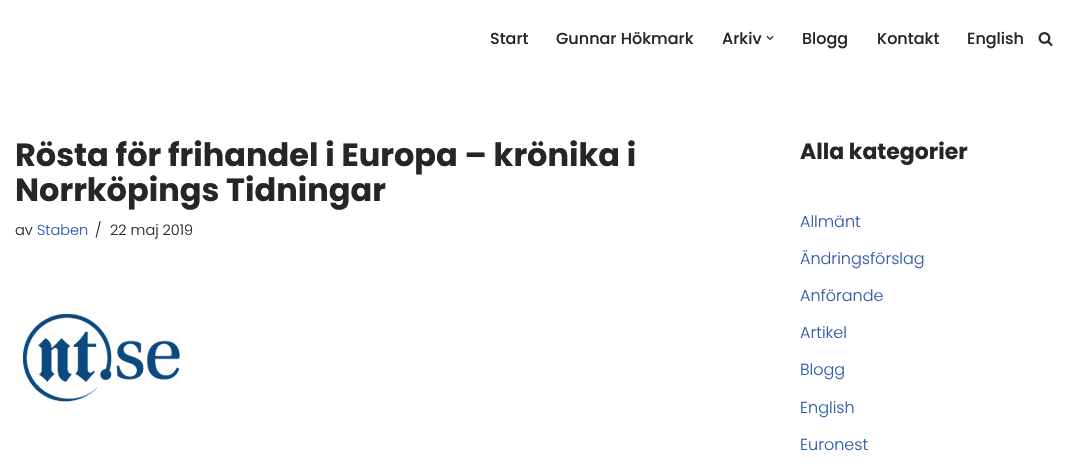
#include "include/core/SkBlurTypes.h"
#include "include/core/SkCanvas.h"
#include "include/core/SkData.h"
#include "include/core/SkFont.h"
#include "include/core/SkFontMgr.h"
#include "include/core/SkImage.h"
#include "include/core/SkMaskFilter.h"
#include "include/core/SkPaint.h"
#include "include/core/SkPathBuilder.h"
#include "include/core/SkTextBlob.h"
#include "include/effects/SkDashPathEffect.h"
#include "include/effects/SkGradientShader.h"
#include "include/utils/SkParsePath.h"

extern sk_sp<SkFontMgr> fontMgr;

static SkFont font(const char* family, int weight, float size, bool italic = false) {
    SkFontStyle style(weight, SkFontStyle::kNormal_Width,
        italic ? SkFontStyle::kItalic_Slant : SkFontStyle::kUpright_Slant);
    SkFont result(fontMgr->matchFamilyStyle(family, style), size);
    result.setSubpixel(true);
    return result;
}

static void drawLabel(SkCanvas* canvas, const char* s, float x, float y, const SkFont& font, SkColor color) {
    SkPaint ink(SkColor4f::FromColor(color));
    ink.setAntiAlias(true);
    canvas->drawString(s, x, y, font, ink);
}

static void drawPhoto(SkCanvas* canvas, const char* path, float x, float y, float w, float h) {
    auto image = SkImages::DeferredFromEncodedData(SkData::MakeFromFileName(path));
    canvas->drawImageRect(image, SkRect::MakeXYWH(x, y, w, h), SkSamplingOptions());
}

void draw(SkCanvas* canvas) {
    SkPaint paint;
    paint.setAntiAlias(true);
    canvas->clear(0xFFFFFFFF);
    SkFont font1 = font("Poppins", 500, 16);
    drawLabel(canvas, "Start", 490, 44, font1, 0xFF272626);
    drawLabel(canvas, "Gunnar Hökmark", 556, 44, font1, 0xFF272626);
    drawLabel(canvas, "Arkiv", 722, 44, font1, 0xFF272626);
    drawPhoto(canvas, "assets/img1.png", 766, 36, 8, 4);
    drawLabel(canvas, "Blogg", 802, 44, font1, 0xFF272626);
    drawLabel(canvas, "Kontakt", 877, 44, font1, 0xFF272626);
    drawLabel(canvas, "English", 967, 44, font1, 0xFF272626);
    drawPhoto(canvas, "assets/img2.png", 1038, 32, 15, 14);
    SkFont font2 = font("Poppins", 700, 32);
    drawLabel(canvas, "Rösta för frihandel i Europa – krönika i", 15, 166, font2, 0xFF272626);
    drawLabel(canvas, "Norrköpings Tidningar", 15, 201, font2, 0xFF272626);
    SkFont font3 = font("Poppins", 300, 14.5f);
    drawLabel(canvas, "av", 15, 235, font3, 0xFF272626);
    drawLabel(canvas, "Staben", 37, 235, font3, 0xFF2F5AAE);
    drawLabel(canvas, "/", 95, 235, font3, 0xFF272626);
    drawLabel(canvas, "22 maj 2019", 110, 235, font3, 0xFF272626);
    drawPhoto(canvas, "assets/img3.png", 23, 314, 157, 88);
    SkFont font4 = font("Poppins", 700, 22);
    drawLabel(canvas, "Alla kategorier", 800, 159, font4, 0xFF272626);
    SkFont font5 = font("Poppins", 300, 16);
    drawLabel(canvas, "Allmänt", 800, 227, font5, 0xFF2F5AAE);
    drawLabel(canvas, "Ändringsförslag", 800, 264, font5, 0xFF2F5AAE);
    drawLabel(canvas, "Anförande", 800, 301, font5, 0xFF2F5AAE);
    drawLabel(canvas, "Artikel", 800, 338, font5, 0xFF2F5AAE);
    drawLabel(canvas, "Blogg", 800, 375, font5, 0xFF2F5AAE);
    drawLabel(canvas, "English", 800, 413, font5, 0xFF2F5AAE);
    drawLabel(canvas, "Euronest", 800, 450, font5, 0xFF2F5AAE);
}
